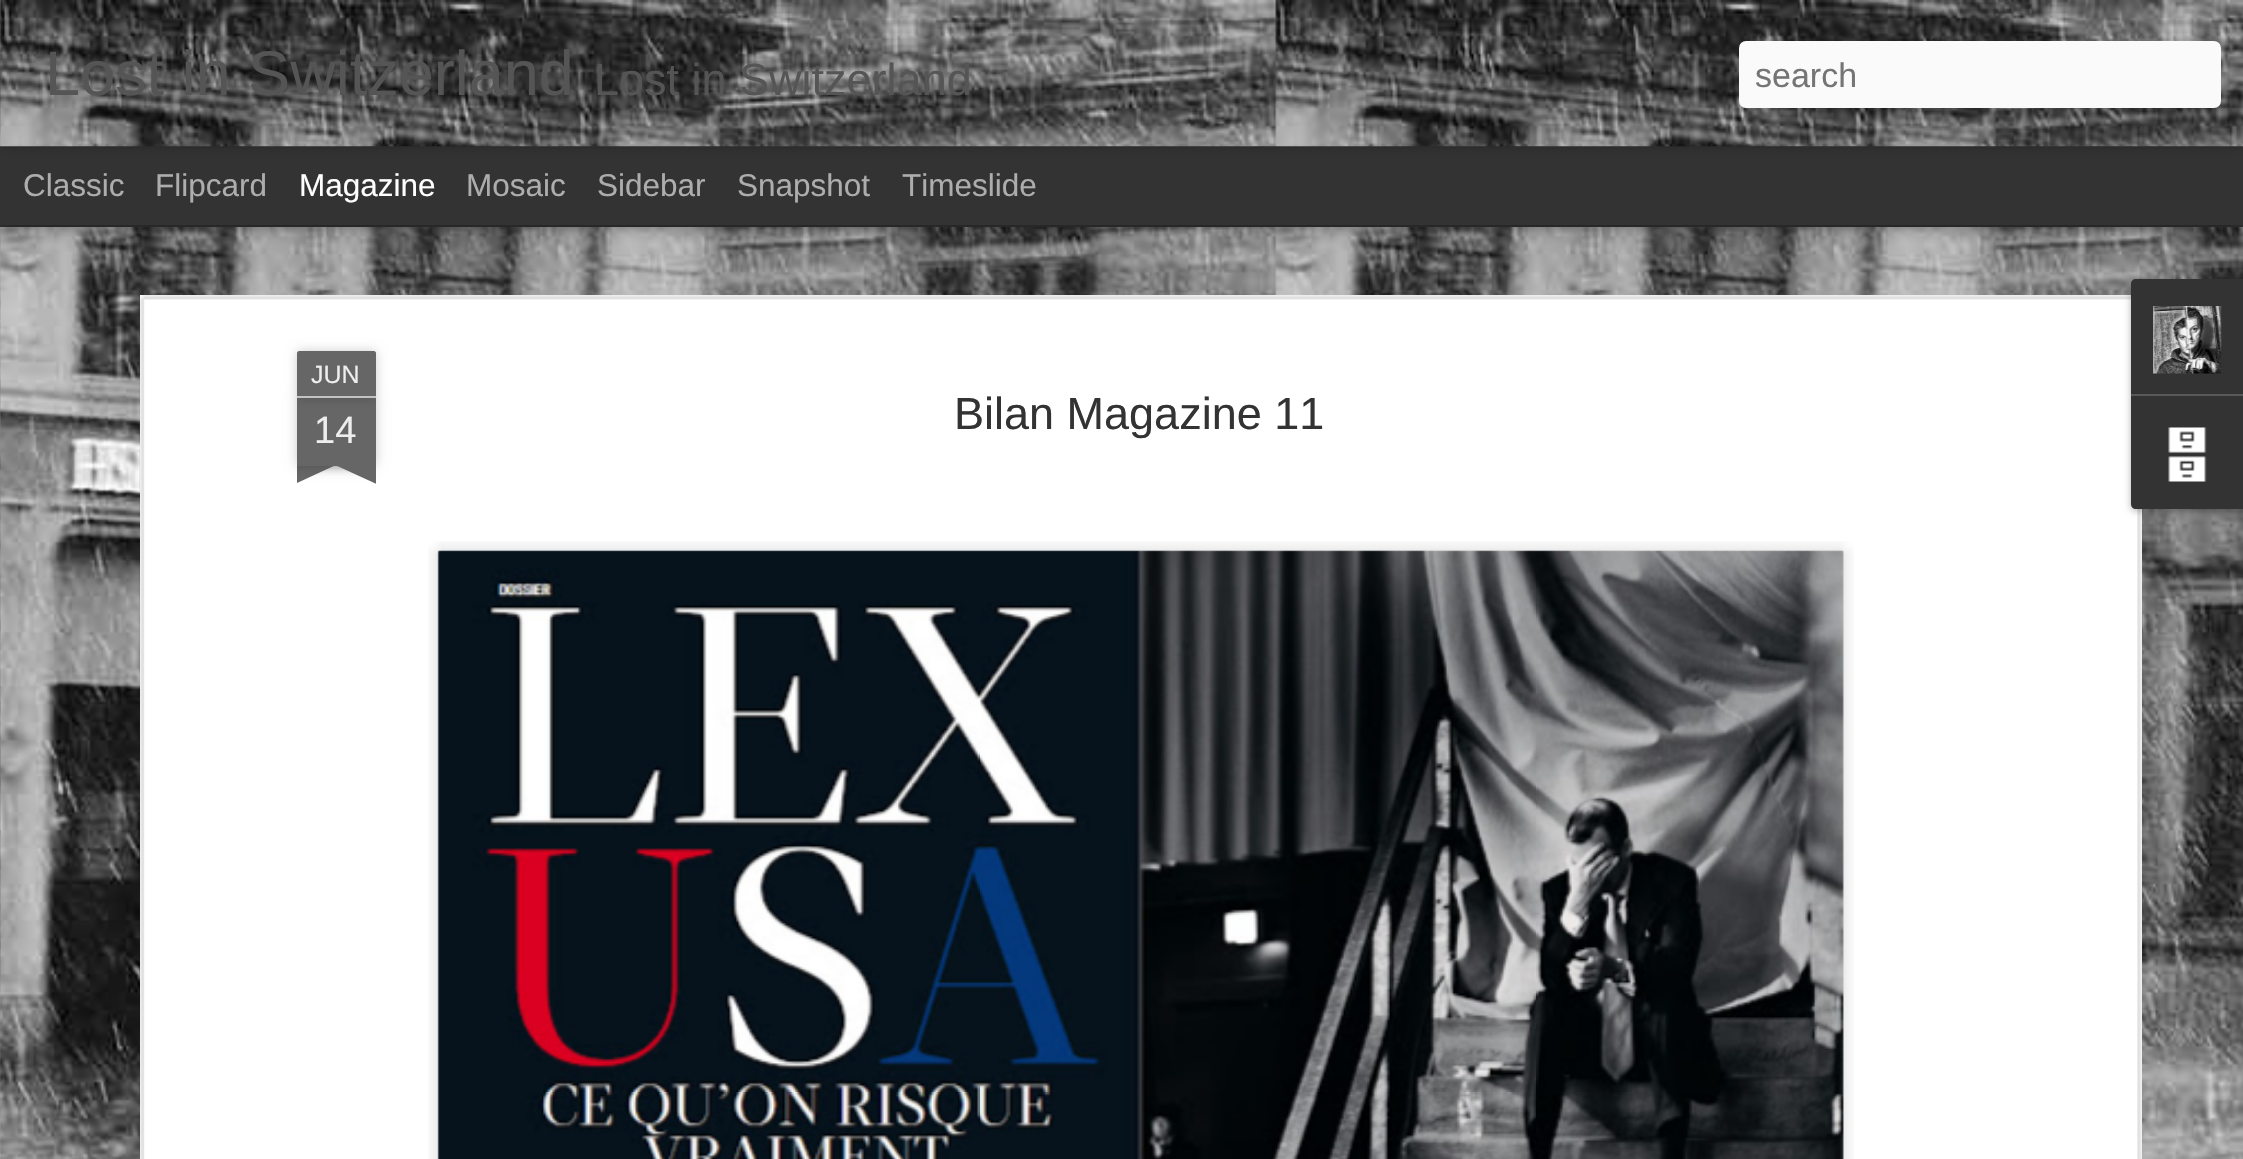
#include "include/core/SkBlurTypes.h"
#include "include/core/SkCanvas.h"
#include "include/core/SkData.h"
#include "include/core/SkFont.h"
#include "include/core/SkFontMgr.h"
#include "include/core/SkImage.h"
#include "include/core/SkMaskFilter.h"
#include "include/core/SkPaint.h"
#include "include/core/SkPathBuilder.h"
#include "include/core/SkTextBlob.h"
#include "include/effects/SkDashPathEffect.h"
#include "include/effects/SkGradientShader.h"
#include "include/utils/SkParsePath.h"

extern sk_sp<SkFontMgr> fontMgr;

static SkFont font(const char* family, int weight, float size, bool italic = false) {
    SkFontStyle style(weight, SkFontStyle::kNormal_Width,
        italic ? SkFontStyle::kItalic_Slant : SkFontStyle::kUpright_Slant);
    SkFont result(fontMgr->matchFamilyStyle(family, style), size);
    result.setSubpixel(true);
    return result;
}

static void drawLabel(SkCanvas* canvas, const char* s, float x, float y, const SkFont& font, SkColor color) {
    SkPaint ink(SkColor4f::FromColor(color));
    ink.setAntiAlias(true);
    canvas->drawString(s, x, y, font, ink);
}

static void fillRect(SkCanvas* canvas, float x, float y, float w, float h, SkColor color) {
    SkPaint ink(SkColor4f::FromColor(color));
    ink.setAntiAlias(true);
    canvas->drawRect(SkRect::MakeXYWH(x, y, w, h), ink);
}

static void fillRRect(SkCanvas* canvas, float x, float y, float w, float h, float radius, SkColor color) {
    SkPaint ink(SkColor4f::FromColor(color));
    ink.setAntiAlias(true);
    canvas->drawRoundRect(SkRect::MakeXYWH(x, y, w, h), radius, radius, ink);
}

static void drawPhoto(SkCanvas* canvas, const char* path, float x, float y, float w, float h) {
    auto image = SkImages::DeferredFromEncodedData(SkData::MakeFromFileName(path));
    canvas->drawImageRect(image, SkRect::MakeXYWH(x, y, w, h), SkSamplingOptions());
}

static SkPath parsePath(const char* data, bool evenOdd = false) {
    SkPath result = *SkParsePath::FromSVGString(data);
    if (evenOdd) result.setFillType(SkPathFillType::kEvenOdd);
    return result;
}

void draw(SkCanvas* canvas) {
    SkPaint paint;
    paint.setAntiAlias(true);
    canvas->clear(0xFF333333);
    drawPhoto(canvas, "assets/img2.png", 0, 227, 2243, 932);
    paint.setColor(0x80000000);
    paint.setMaskFilter(SkMaskFilter::MakeBlur(kNormal_SkBlurStyle, 9));
    canvas->drawRect(SkRect::MakeXYWH(0, 146, 2243, 79), paint);
    paint.setMaskFilter(nullptr);
    fillRect(canvas, 0, 146, 2243, 79, 0xFF333333);
    paint.setColor(0x4D000000);
    paint.setMaskFilter(SkMaskFilter::MakeBlur(kNormal_SkBlurStyle, 5.5f));
    canvas->drawRect(SkRect::MakeXYWH(0, 0, 2243, 146), paint);
    paint.setMaskFilter(nullptr);
    drawPhoto(canvas, "assets/img1.png", 0, 0, 2243, 147);
    SkFont font1 = font("Liberation Sans", 400, 63);
    drawLabel(canvas, "Lost in Switzerland", 45, 95, font1, 0xFF555555);
    SkFont font2 = font("Liberation Sans", 400, 45);
    drawLabel(canvas, "Lost in Switzerland", 594, 95, font2, 0xFF555555);
    fillRRect(canvas, 1739, 41, 482, 67, 7, 0xFFFAFAFA);
    SkFont font3 = font("Liberation Sans", 400, 34);
    drawLabel(canvas, "search", 1755, 87, font3, 0xFF757575);
    SkFont font4 = font("Liberation Sans", 400, 31.5f);
    drawLabel(canvas, "Classic", 23, 196, font4, 0xFFADADAD);
    drawLabel(canvas, "Flipcard", 155, 196, font4, 0xFFADADAD);
    drawLabel(canvas, "Magazine", 299, 196, font4, 0xFFFFFFFF);
    drawLabel(canvas, "Mosaic", 466, 196, font4, 0xFFADADAD);
    drawLabel(canvas, "Sidebar", 597, 196, font4, 0xFFADADAD);
    drawLabel(canvas, "Snapshot", 737, 196, font4, 0xFFADADAD);
    drawLabel(canvas, "Timeslide", 902, 196, font4, 0xFFADADAD);
    fillRect(canvas, 140, 295, 2002, 864, 0xFFFFFFFF);
    drawPhoto(canvas, "assets/img3.png", 139, 295, 2003, 864);
    paint.setColor(0x33000000);
    paint.setMaskFilter(SkMaskFilter::MakeBlur(kNormal_SkBlurStyle, 5.5f));
    canvas->drawRect(SkRect::MakeXYWH(297, 398, 79, 68), paint);
    paint.setMaskFilter(nullptr);
    fillRect(canvas, 297, 398, 79, 68, 0xFF666666);
    paint.setMaskFilter(SkMaskFilter::MakeBlur(kNormal_SkBlurStyle, 5.5f));
    canvas->drawRoundRect(SkRect::MakeXYWH(297, 351, 79, 47), 2, 2, paint);
    paint.setMaskFilter(nullptr);
    paint.setColor(0xFF666666);
    canvas->drawPath(parsePath("M299 351H374C375 351 376 352 376 353V398H297V353C297 352 298 351 299 351Z"), paint);
    fillRect(canvas, 297, 396, 79, 2, 0xFFC2C2C2);
    SkFont font5 = font("Liberation Sans", 400, 25);
    drawLabel(canvas, "JUN", 311, 383, font5, 0xFFEEEEEE);
    SkFont font6 = font("Liberation Sans", 400, 38);
    drawLabel(canvas, "14", 314, 443, font6, 0xFFEEEEEE);
    canvas->save();
    canvas->clipRect(SkRect::MakeXYWH(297, 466, 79, 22));
    paint.setColor(0x33000000);
    paint.setMaskFilter(SkMaskFilter::MakeBlur(kNormal_SkBlurStyle, 5.5f));
    canvas->drawRect(SkRect::MakeXYWH(277, 443, 112, 23), paint);
    paint.setMaskFilter(nullptr);
    canvas->restore();
    canvas->save();
    canvas->clipRect(SkRect::MakeXYWH(297, 466, 79, 22));
    paint.setColor(0xFF666666);
    canvas->drawPath(parsePath("M276 468L378 421L388 441L286 488Z"), paint);
    canvas->restore();
    canvas->save();
    canvas->clipRect(SkRect::MakeXYWH(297, 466, 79, 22));
    paint.setColor(0x33000000);
    paint.setMaskFilter(SkMaskFilter::MakeBlur(kNormal_SkBlurStyle, 5.5f));
    canvas->drawRect(SkRect::MakeXYWH(284, 443, 112, 23), paint);
    paint.setMaskFilter(nullptr);
    canvas->restore();
    canvas->save();
    canvas->clipRect(SkRect::MakeXYWH(297, 466, 79, 22));
    paint.setColor(0xFF666666);
    canvas->drawPath(parsePath("M292 421L394 468L385 488L283 441Z"), paint);
    canvas->restore();
    drawLabel(canvas, "Bilan Magazine 11", 954, 429, font2, 0xFF333333);
    drawPhoto(canvas, "assets/img4.png", 428, 541, 1426, 618);
    drawPhoto(canvas, "assets/img5.png", 437, 550, 1407, 609);
    paint.setColor(0x4D000000);
    paint.setMaskFilter(SkMaskFilter::MakeBlur(kNormal_SkBlurStyle, 3.5f));
    canvas->drawRoundRect(SkRect::MakeXYWH(2131, 281, 112, 230), 5, 5, paint);
    paint.setMaskFilter(nullptr);
    paint.setColor(0xFF333333);
    canvas->drawPath(parsePath("M2136 279H2243V394H2131V284C2131 281 2133 279 2136 279Z"), paint);
    drawPhoto(canvas, "assets/img6.png", 2153, 306, 69, 68);
    canvas->drawPath(parsePath("M2131 394H2243V509H2136C2133 509 2131 507 2131 504Z"), paint);
    fillRect(canvas, 2131, 394, 112, 2, 0xFF585858);
    drawPhoto(canvas, "assets/img7.png", 2168, 427, 39, 55);
}
